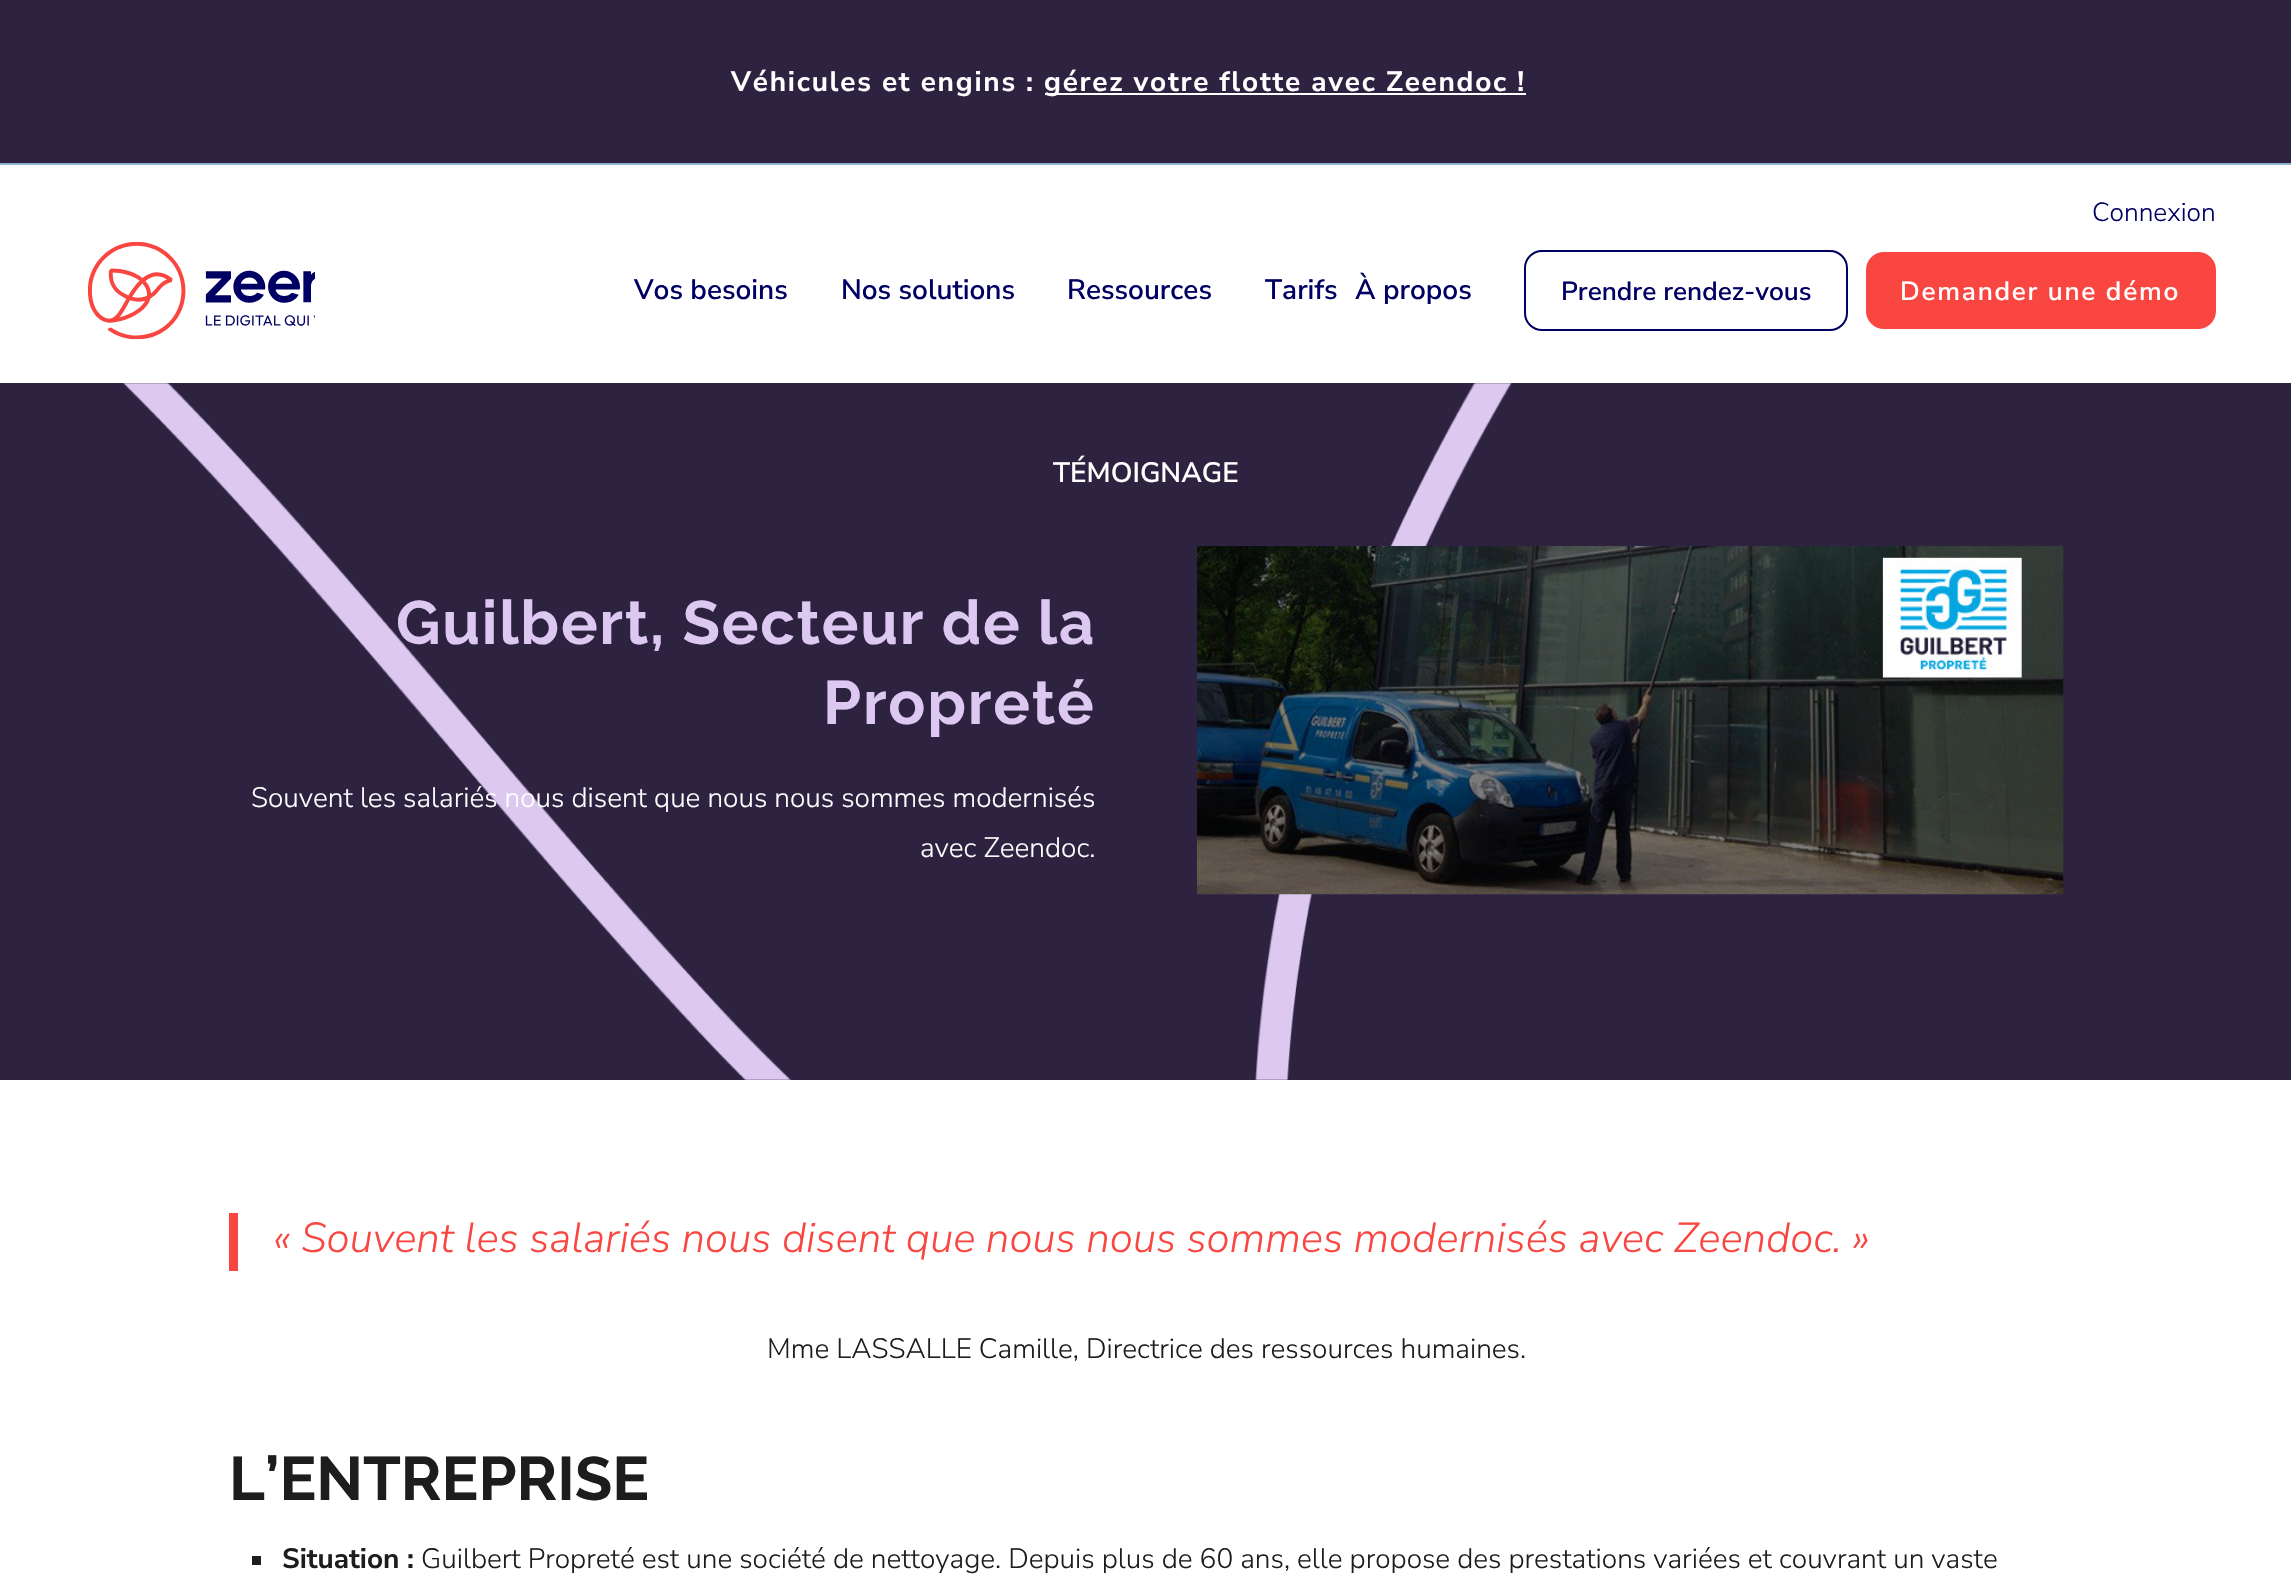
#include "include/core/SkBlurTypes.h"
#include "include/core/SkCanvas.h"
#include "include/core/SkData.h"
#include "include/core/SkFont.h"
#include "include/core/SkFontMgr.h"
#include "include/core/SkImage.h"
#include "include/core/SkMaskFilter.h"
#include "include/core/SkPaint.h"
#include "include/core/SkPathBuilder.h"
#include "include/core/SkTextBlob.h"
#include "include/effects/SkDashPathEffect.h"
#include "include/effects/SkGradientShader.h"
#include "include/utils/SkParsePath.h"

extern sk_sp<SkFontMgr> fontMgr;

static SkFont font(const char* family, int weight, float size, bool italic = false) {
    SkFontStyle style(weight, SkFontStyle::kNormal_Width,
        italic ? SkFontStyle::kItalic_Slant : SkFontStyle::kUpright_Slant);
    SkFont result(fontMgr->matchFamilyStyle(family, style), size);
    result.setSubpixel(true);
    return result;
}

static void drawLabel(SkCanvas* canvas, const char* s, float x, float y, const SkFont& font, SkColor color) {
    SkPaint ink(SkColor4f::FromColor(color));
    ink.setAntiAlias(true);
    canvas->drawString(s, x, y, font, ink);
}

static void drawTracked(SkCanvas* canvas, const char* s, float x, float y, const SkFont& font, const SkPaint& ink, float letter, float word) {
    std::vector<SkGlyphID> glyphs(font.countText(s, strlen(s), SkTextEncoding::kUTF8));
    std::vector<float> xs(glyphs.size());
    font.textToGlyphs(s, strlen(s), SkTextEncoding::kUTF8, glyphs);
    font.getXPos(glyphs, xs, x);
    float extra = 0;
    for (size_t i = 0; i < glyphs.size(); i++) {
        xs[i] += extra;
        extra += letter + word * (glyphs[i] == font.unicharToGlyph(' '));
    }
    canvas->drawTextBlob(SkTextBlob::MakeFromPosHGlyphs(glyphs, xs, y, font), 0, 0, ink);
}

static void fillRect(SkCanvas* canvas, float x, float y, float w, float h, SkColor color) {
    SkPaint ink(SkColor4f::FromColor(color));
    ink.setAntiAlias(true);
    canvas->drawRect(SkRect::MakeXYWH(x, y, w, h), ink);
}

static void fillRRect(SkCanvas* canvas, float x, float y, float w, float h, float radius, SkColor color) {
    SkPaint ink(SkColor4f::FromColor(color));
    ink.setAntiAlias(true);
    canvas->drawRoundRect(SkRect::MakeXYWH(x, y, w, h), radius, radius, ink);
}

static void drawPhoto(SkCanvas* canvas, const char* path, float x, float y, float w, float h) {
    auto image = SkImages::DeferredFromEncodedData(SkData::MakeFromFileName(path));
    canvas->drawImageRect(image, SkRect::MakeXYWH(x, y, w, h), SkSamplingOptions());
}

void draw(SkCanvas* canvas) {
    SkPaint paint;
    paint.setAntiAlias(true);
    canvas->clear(0xFFFFFFFF);
    fillRect(canvas, 0, 0, 2291, 163, 0xFF2D2341);
    fillRect(canvas, 0, 163, 2291, 2, 0xFF8EB0D1);
    SkFont font1 = font("Nunito Sans", 700, 28);
    paint.setColor(0xFFFFFFFF);
    drawTracked(canvas, "Véhicules et engins :", 731, 91, font1, paint, 1.75f, 0);
    fillRect(canvas, 1045, 93, 481, 2, 0xFFFFFFFF);
    drawTracked(canvas, "gérez votre flotte avec Zeendoc !", 1044, 91, font1, paint, 1.75f, 0);
    SkFont font2 = font("Nunito Sans", 300, 26.25f);
    drawLabel(canvas, "Connexion", 2092, 221, font2, 0xFF000064);
    drawPhoto(canvas, "assets/img1.png", 88, 242, 227, 98);
    SkFont font3 = font("Nunito Sans", 600, 28);
    drawLabel(canvas, "Vos besoins", 634, 299, font3, 0xFF000064);
    drawLabel(canvas, "Nos solutions", 841, 299, font3, 0xFF000064);
    drawLabel(canvas, "Ressources", 1067, 299, font3, 0xFF000064);
    drawLabel(canvas, "Tarifs", 1265, 299, font3, 0xFF000064);
    drawLabel(canvas, "À propos", 1355, 299, font3, 0xFF000064);
    paint.setStroke(true);
    paint.setStrokeWidth(2);
    paint.setColor(0xFF000063);
    canvas->drawRoundRect(SkRect::MakeXYWH(1525, 251, 322, 79), 17, 17, paint);
    SkFont font4 = font("Nunito Sans", 600, 26.25f);
    drawLabel(canvas, "Prendre rendez-vous", 1561, 300, font4, 0xFF000064);
    fillRRect(canvas, 1866, 252, 350, 77, 18, 0xFFFA4641);
    paint.setStroke(false);
    paint.setColor(0xFFFFFFFF);
    drawTracked(canvas, "Demander une démo", 1900, 300, font4, paint, 1.75f, 0);
    fillRect(canvas, 0, 383, 2291, 697, 0xFF2D2341);
    drawPhoto(canvas, "assets/img2.png", 122, 383, 1390, 697);
    drawLabel(canvas, "TÉMOIGNAGE", 1053, 482, font3, 0xFFFFFFFF);
    SkFont font5 = font("Raleway", 700, 61.25f);
    paint.setColor(0xFFDCC8F0);
    drawTracked(canvas, "Guilbert, Secteur de la", 396, 644, font5, paint, 1.75f, 0);
    drawTracked(canvas, "Propreté", 823, 724, font5, paint, 1.75f, 0);
    SkFont font6 = font("Nunito Sans", 300, 28);
    drawLabel(canvas, "Souvent les salariés nous disent que nous nous sommes modernisés", 251, 807, font6, 0xFFFFFFFF);
    drawLabel(canvas, "avec Zeendoc.", 920, 857, font6, 0xFFFFFFFF);
    drawPhoto(canvas, "assets/img3.png", 1197, 546, 867, 349);
    fillRect(canvas, 229, 1213, 9, 58, 0xFFFA4641);
    SkFont font7 = font("Nunito Sans", 300, 42, true);
    drawLabel(canvas, "« Souvent les salariés nous disent que nous nous sommes modernisés avec Zeendoc. »", 273, 1252, font7, 0xFFFA4641);
    drawLabel(canvas, "Mme LASSALLE Camille, Directrice des ressources humaines.", 767, 1358, font6, 0xFF1D1D1D);
    drawLabel(canvas, "L’ENTREPRISE", 229, 1500, font5, 0xFF1D1D1D);
    fillRect(canvas, 252, 1556, 9, 9, 0xFF1D1D1D);
    drawLabel(canvas, "Situation :", 282, 1568, font1, 0xFF1D1D1D);
    drawLabel(canvas, "Guilbert Propreté est une société de nettoyage. Depuis plus de 60 ans, elle propose des prestations variées et couvrant un vaste", 421, 1568, font6, 0xFF1D1D1D);
}
